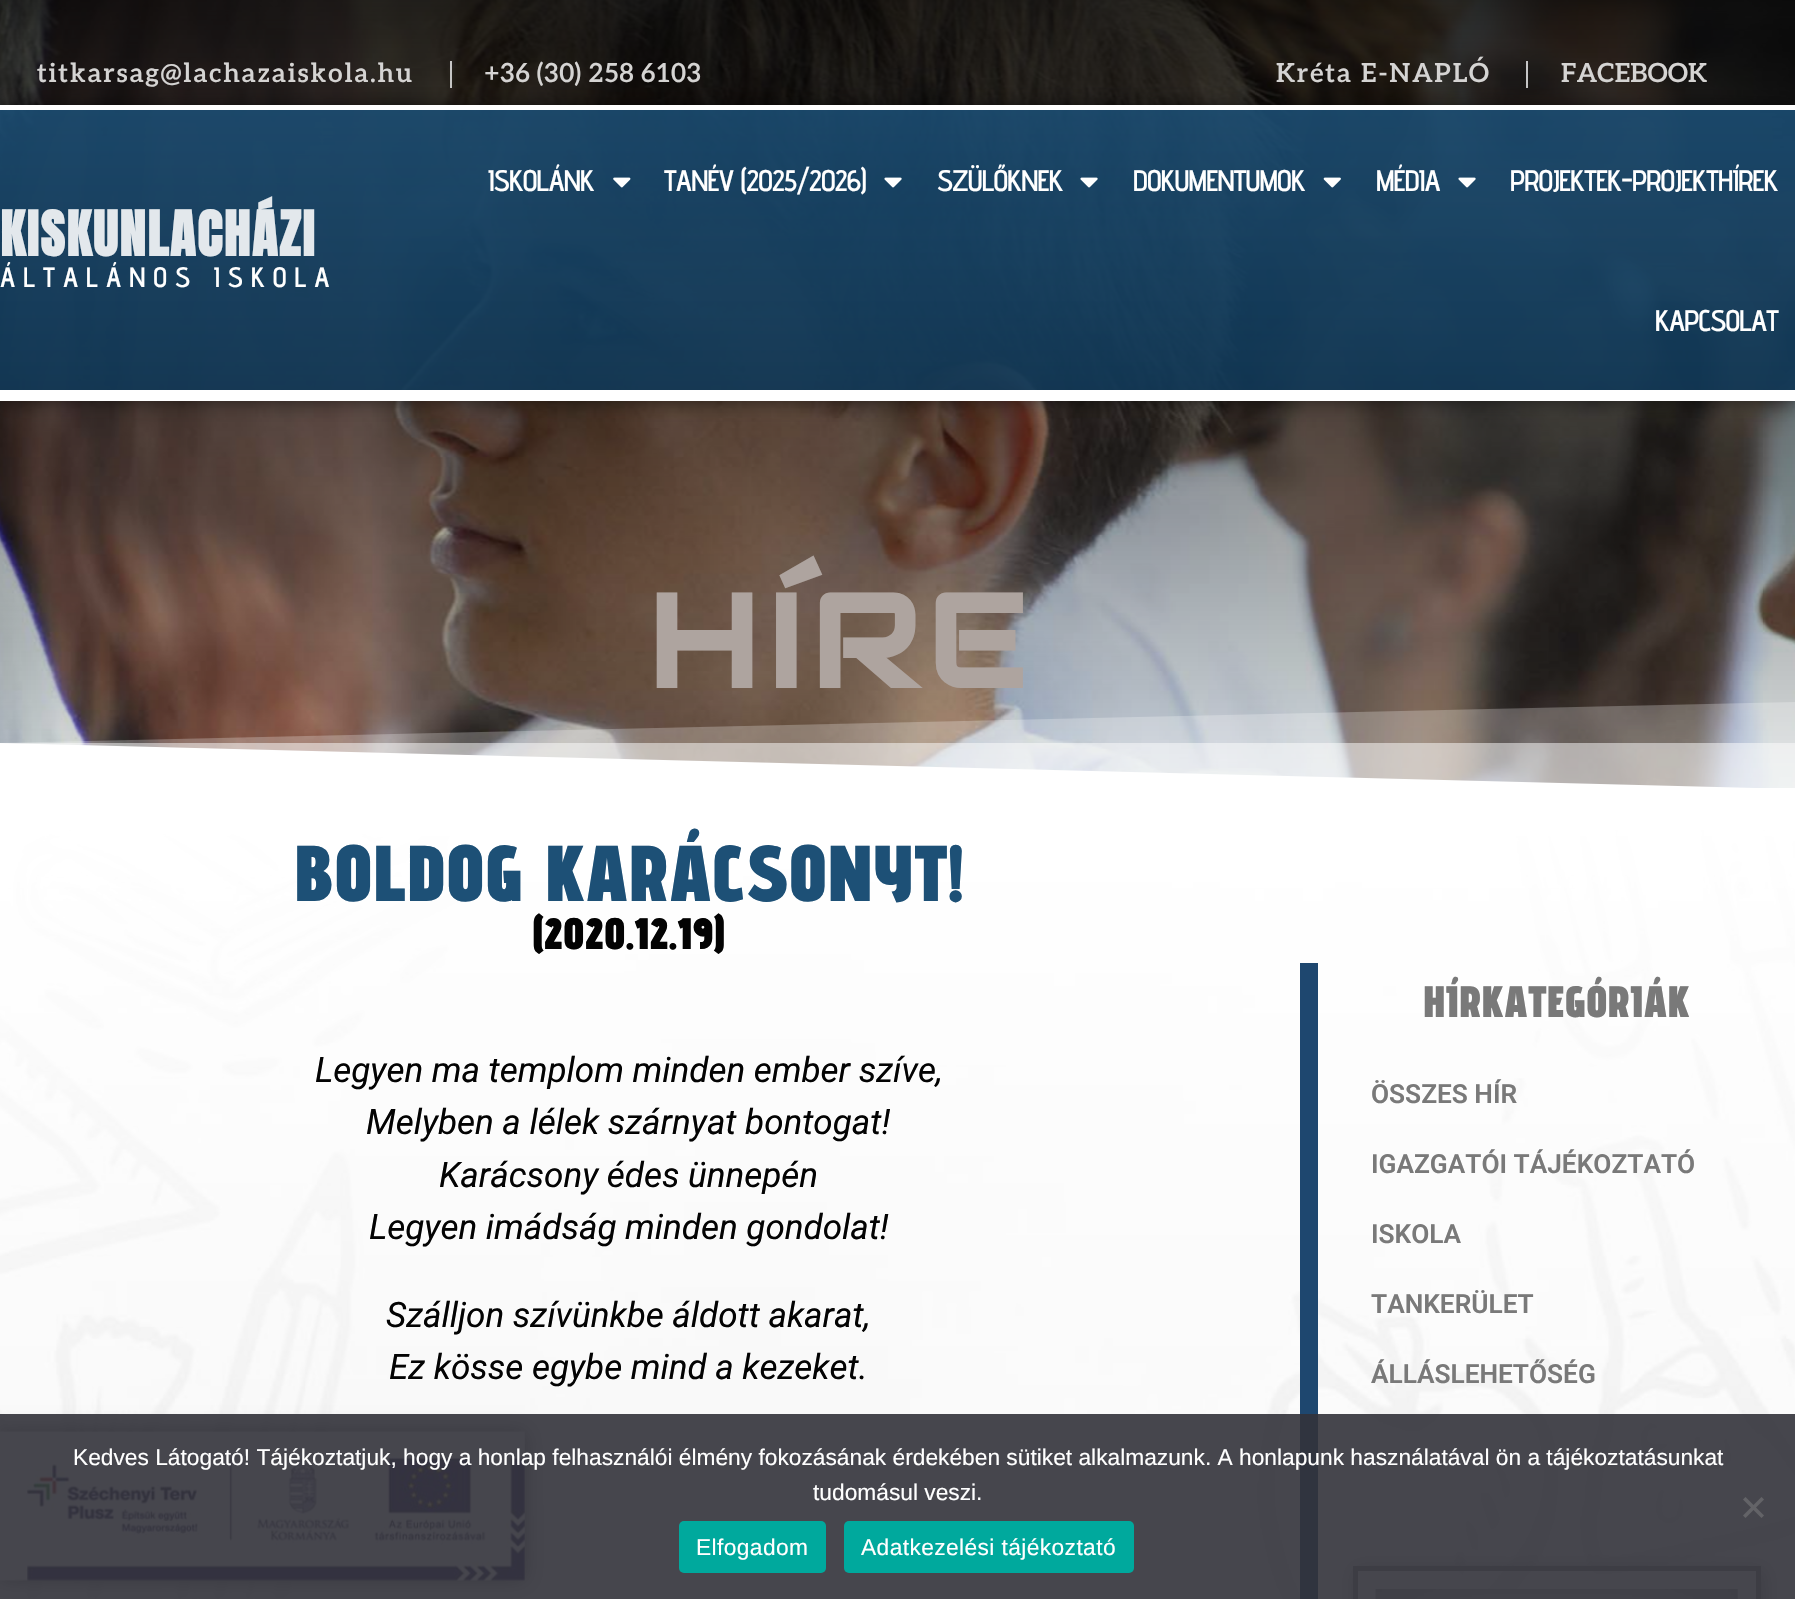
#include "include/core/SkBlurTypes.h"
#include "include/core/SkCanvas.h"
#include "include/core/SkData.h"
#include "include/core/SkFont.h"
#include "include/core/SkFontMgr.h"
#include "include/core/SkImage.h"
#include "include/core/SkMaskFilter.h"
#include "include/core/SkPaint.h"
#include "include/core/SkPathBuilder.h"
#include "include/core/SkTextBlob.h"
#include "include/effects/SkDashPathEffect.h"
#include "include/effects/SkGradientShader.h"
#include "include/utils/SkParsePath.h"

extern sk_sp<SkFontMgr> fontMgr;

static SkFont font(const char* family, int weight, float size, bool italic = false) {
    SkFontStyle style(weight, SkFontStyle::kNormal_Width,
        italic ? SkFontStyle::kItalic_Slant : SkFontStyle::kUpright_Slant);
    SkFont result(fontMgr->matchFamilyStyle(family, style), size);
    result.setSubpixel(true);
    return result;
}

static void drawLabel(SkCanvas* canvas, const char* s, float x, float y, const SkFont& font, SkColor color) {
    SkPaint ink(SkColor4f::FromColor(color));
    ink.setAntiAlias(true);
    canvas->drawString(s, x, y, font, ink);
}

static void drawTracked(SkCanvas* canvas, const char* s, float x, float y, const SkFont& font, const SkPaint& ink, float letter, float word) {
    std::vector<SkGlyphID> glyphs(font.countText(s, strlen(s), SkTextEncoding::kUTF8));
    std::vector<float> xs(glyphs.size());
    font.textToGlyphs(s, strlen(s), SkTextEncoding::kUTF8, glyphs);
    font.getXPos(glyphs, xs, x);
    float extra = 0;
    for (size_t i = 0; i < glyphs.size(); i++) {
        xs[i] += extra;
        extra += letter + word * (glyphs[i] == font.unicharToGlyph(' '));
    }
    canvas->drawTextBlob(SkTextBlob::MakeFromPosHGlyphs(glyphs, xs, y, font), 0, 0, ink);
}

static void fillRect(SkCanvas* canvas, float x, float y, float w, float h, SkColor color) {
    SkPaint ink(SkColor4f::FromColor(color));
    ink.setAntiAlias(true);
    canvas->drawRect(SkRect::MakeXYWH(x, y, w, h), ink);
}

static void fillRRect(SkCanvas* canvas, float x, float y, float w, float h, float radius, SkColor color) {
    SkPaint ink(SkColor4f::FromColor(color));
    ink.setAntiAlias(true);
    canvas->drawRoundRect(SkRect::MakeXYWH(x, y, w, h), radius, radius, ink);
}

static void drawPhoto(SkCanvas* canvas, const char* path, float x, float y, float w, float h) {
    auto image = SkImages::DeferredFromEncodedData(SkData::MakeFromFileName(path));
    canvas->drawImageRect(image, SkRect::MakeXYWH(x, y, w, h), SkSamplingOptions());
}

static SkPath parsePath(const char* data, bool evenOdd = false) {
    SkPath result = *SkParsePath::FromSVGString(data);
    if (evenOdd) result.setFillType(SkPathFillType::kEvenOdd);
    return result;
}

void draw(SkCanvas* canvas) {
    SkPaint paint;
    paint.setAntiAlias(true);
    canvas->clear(0xFFFFFFFF);
    drawPhoto(canvas, "assets/img1.png", 0, 0, 1795, 788);
    SkFont font1 = font("Aleo", 600, 26.25f);
    paint.setColor(0xFFD5D4D3);
    drawTracked(canvas, "titkarsag@lachazaiskola.hu", 37, 82, font1, paint, 1.75f, 0);
    fillRect(canvas, 450, 61, 2, 27, 0xFFC6C6C6);
    drawLabel(canvas, "+36 (30) 258 6103", 484, 82, font1, 0xFFD5D4D3);
    drawTracked(canvas, "Kréta E-NAPLÓ", 1276, 82, font1, paint, 1.75f, 0);
    fillRect(canvas, 1526, 61, 2, 27, 0xFFC6C6C6);
    drawLabel(canvas, "FACEBOOK", 1561, 82, font1, 0xFFD5D4D3);
    canvas->save();
    canvas->clipPath(parsePath("M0 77H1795V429H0ZM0 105H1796V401H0Z", true), true);
    paint.setColor(0x80000000);
    paint.setMaskFilter(SkMaskFilter::MakeBlur(kNormal_SkBlurStyle, 9));
    canvas->drawRect(SkRect::MakeXYWH(0, 105, 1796, 296), paint);
    paint.setMaskFilter(nullptr);
    canvas->restore();
    fillRect(canvas, 0, 105, 1795, 5, 0xFFFFFFFF);
    fillRect(canvas, 0, 390, 1795, 11, 0xFFFFFFFF);
    SkFont font2 = font("Anton", 700, 52.5f);
    paint.setColor(0xFFE3E8EC);
    drawTracked(canvas, "KISKUNLACHÁZI", 0, 256, font2, paint, 1.75f, 0);
    SkFont font3 = font("Advent Pro", 600, 28);
    paint.setColor(0xFFFFFFFF);
    drawTracked(canvas, "ÁLTALÁNOS ISKOLA", 0, 287, font3, paint, 7.9f, 0);
    SkFont font4 = font("Advent Pro", 600, 29.75f);
    drawTracked(canvas, "ISKOLÁNK", 488, 191, font4, paint, -0.9f, 0);
    drawPhoto(canvas, "assets/img2.png", 613, 177, 18, 11);
    drawTracked(canvas, "TANÉV (2025/2026)", 664, 191, font4, paint, -0.9f, 0);
    drawPhoto(canvas, "assets/img3.png", 884, 177, 18, 11);
    drawTracked(canvas, "SZÜLŐKNEK", 937, 191, font4, paint, -0.9f, 0);
    drawPhoto(canvas, "assets/img4.png", 1080, 177, 18, 11);
    drawTracked(canvas, "DOKUMENTUMOK", 1133, 191, font4, paint, -0.9f, 0);
    drawPhoto(canvas, "assets/img5.png", 1323, 177, 18, 11);
    drawTracked(canvas, "MÉDIA", 1376, 191, font4, paint, -0.9f, 0);
    drawPhoto(canvas, "assets/img6.png", 1458, 177, 18, 11);
    drawTracked(canvas, "PROJEKTEK-PROJEKTHÍREK", 1510, 191, font4, paint, -0.9f, 0);
    drawTracked(canvas, "KAPCSOLAT", 1655, 331, font4, paint, -0.9f, 0);
    SkFont font5 = font("Audiowide", 700, 131);
    paint.setColor(0xFFAEA49F);
    drawTracked(canvas, "HÍRE", 647, 688, font5, paint, 7.9f, 0);
    paint.setColor(0xFFFFFFFF);
    canvas->drawPath(parsePath("M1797 789H-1V743Z"), paint);
    fillRect(canvas, 2, 743, 1793, 45, 0x80FFFFFF);
    paint.setColor(0x40FFFFFF);
    canvas->drawPath(parsePath("M-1 789H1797V702L-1 743Z"), paint);
    drawPhoto(canvas, "assets/img7.png", 0, 797, 1795, 802);
    {
        const SkColor colors[] = {0xFFFFFFFF, 0x87FFFFFF};
        const float stops[] = {0, 0.35f};
        const SkPoint ends[] = {{898, 787}, {898, 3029}};
        paint.setShader(SkGradientShader::MakeLinear(ends, colors, stops, 2, SkTileMode::kClamp));
        paint.setAlpha(255);
    }
    canvas->drawRect(SkRect::MakeXYWH(0, 797, 1795, 802), paint);
    SkFont font6 = font("Advent Pro", 900, 78.75f);
    drawLabel(canvas, "BOLDOG KARÁCSONYT!", 294, 901, font6, 0xFF1D5076);
    SkFont font7 = font("Advent Pro", 900, 43.75f);
    drawLabel(canvas, "(2020.12.19)", 532, 949, font7, 0xFF030303);
    SkFont font8 = font("Roboto", 400, 35, true);
    drawLabel(canvas, "Legyen ma templom minden ember szíve,", 315, 1082, font8, 0xFF030303);
    drawLabel(canvas, "Melyben a lélek szárnyat bontogat!", 366, 1134, font8, 0xFF030303);
    drawLabel(canvas, "Karácsony édes ünnepén", 439, 1187, font8, 0xFF030303);
    drawLabel(canvas, "Legyen imádság minden gondolat!", 369, 1239, font8, 0xFF030303);
    drawLabel(canvas, "Szálljon szívünkbe áldott akarat,", 386, 1327, font8, 0xFF030303);
    drawLabel(canvas, "Ez kösse egybe mind a kezeket.", 389, 1379, font8, 0xFF030303);
    fillRect(canvas, 1300, 963, 18, 636, 0xFF1E476F);
    drawLabel(canvas, "HÍRKATEGÓRIÁK", 1423, 1017, font7, 0xFF797979);
    SkFont font9 = font("Roboto", 600, 26.25f);
    drawLabel(canvas, "ÖSSZES HÍR", 1371, 1103, font9, 0xFF797979);
    drawLabel(canvas, "IGAZGATÓI TÁJÉKOZTATÓ", 1371, 1173, font9, 0xFF797979);
    drawLabel(canvas, "ISKOLA", 1371, 1243, font9, 0xFF797979);
    drawLabel(canvas, "TANKERÜLET", 1371, 1313, font9, 0xFF797979);
    drawLabel(canvas, "ÁLLÁSLEHETŐSÉG", 1371, 1383, font9, 0xFF797979);
    canvas->save();
    canvas->clipPath(parsePath("M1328 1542H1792V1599H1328ZM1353 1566H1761V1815H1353Z", true), true);
    paint.setShader(nullptr);
    paint.setColor(0x54000000);
    paint.setMaskFilter(SkMaskFilter::MakeBlur(kNormal_SkBlurStyle, 9));
    canvas->drawRect(SkRect::MakeXYWH(1356, 1570, 408, 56), paint);
    paint.setMaskFilter(nullptr);
    canvas->restore();
    paint.setStroke(true);
    paint.setStrokeWidth(5);
    paint.setColor(0xFF9B9B9B);
    canvas->drawRect(SkRect::MakeXYWH(1355.5f, 1568.5f, 403, 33), paint);
    drawPhoto(canvas, "assets/img8.png", 1375, 1589, 363, 10);
    paint.setStroke(false);
    paint.setColor(0x80000000);
    paint.setMaskFilter(SkMaskFilter::MakeBlur(kNormal_SkBlurStyle, 9));
    canvas->drawRect(SkRect::MakeXYWH(0, 1432, 525, 148), paint);
    paint.setMaskFilter(nullptr);
    drawPhoto(canvas, "assets/img9.png", 0, 1430, 525, 151);
    fillRect(canvas, 0, 1414, 1795, 185, 0xE632323A);
    SkFont font10 = font("Liberation Sans", 400, 22.75f);
    drawLabel(canvas, "Kedves Látogató! Tájékoztatjuk, hogy a honlap felhasználói élmény fokozásának érdekében sütiket alkalmazunk. A honlapunk használatával ön a tájékoztatásunkat", 73, 1465, font10, 0xFFFFFFFF);
    drawLabel(canvas, "tudomásul veszi.", 813, 1500, font10, 0xFFFFFFFF);
    paint.setColor(0xFF636367);
    canvas->drawPath(parsePath("M1761.5 1497L1764 1499.5L1745.5 1518L1743 1515.5Z"), paint);
    canvas->drawPath(parsePath("M1743 1499.5L1745.5 1497L1764 1515.5L1761.5 1518Z"), paint);
    fillRRect(canvas, 679, 1521, 147, 52, 5, 0xFF00A99D);
    paint.setColor(0xFFFFFFFF);
    drawTracked(canvas, "Elfogadom", 696, 1555, font10, paint, 0.4f, 0);
    fillRRect(canvas, 844, 1521, 290, 52, 5, 0xFF00A99D);
    drawTracked(canvas, "Adatkezelési tájékoztató", 861, 1555, font10, paint, 0.4f, 0);
}
